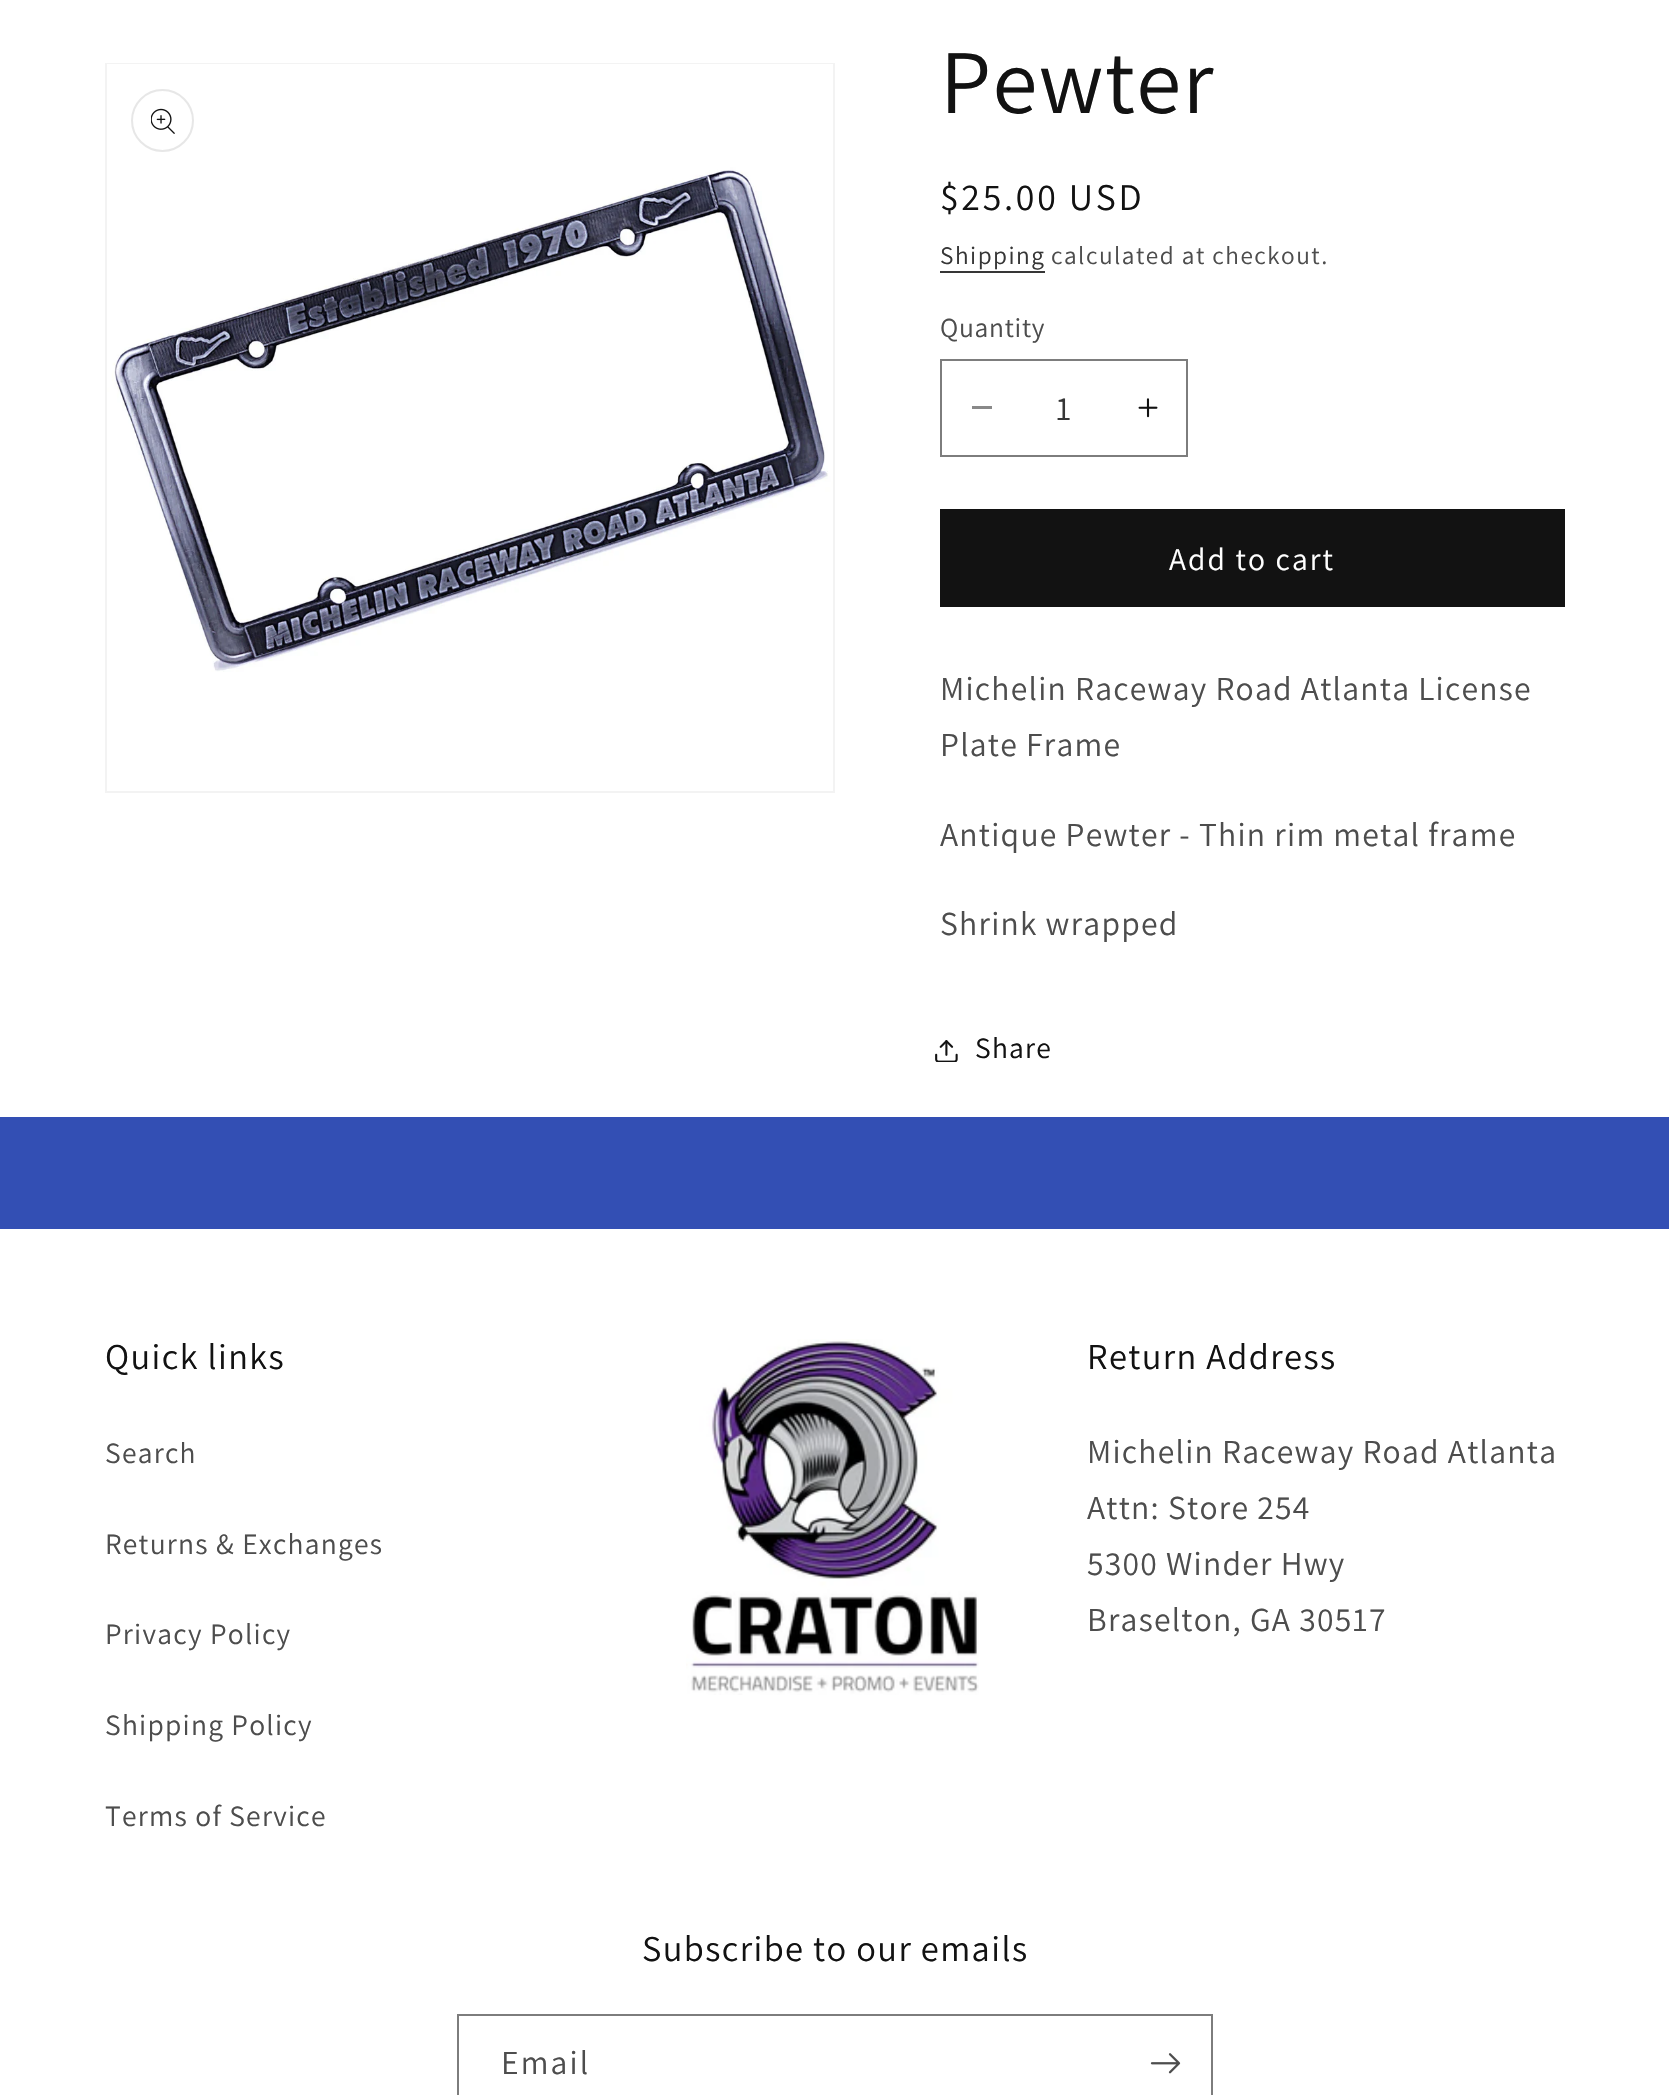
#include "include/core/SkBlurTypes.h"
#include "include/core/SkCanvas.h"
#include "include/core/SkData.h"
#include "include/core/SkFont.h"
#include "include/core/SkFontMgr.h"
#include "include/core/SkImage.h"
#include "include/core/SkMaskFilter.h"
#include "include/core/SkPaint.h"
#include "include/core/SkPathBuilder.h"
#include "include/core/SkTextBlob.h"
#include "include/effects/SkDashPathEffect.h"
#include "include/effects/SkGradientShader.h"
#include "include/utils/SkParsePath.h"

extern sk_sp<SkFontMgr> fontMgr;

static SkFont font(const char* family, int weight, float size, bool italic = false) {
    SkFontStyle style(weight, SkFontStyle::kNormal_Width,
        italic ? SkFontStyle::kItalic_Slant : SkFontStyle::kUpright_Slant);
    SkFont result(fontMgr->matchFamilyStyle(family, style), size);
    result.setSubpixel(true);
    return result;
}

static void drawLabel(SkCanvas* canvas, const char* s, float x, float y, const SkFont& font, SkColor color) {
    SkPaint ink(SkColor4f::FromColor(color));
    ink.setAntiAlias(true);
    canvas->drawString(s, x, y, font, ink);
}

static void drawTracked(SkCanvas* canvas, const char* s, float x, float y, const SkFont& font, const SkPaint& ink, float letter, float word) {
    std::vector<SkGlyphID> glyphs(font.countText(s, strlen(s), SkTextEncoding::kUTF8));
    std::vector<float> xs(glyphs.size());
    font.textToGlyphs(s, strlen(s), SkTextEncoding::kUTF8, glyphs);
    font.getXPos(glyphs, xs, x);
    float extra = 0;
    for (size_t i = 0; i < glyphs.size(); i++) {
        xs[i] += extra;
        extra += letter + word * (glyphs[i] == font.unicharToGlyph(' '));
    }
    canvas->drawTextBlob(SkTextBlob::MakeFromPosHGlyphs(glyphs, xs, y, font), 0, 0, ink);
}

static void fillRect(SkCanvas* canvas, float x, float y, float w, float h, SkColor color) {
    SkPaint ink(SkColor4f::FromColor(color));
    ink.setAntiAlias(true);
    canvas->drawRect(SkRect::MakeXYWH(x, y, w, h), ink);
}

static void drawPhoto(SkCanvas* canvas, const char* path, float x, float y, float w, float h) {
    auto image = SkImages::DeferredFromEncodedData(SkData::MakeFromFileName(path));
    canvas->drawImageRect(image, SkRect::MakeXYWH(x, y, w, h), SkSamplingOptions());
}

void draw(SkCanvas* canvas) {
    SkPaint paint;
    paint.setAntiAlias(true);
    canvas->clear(0xFFFFFFFF);
    paint.setStroke(true);
    paint.setStrokeWidth(2);
    paint.setColor(0xFFF3F3F3);
    canvas->drawRect(SkRect::MakeXYWH(106, 64, 728, 728), paint);
    drawPhoto(canvas, "assets/img1.png", 107, 64, 726, 608);
    paint.setColor(0xFFE7E7E7);
    canvas->drawCircle(162.5f, 120.5f, 30.5f, paint);
    drawPhoto(canvas, "assets/img2.png", 151, 108, 24, 26);
    SkFont font1 = font("Assistant", 400, 91);
    paint.setStroke(false);
    paint.setColor(0xFF121212);
    drawTracked(canvas, "Pewter", 940, 113, font1, paint, 1.4f, 0);
    SkFont font2 = font("Assistant", 400, 37.75f);
    drawTracked(canvas, "$25.00 USD", 940, 210, font2, paint, 2.75f, 0);
    SkFont font3 = font("Assistant", 400, 25.25f);
    paint.setColor(0xFF363636);
    drawTracked(canvas, "Shipping", 940, 264, font3, paint, 1.5f, 0);
    fillRect(canvas, 940, 271, 105, 2, 0xFF363636);
    paint.setColor(0xFF4D4D4D);
    drawTracked(canvas, "calculated at checkout.", 1051, 264, font3, paint, 1.5f, 0);
    SkFont font4 = font("Assistant", 400, 27.5f);
    drawTracked(canvas, "Quantity", 940, 337, font4, paint, 0.75f, 0);
    fillRect(canvas, 972, 406, 20, 3, 0xFF898989);
    drawPhoto(canvas, "assets/img3.png", 1138, 398, 20, 20);
    paint.setStroke(true);
    paint.setColor(0xFF7D7D7D);
    canvas->drawRect(SkRect::MakeXYWH(941, 360, 246, 96), paint);
    SkFont font5 = font("Assistant", 400, 33.6f);
    drawLabel(canvas, "1", 1056, 420, font5, 0xFF363636);
    fillRect(canvas, 940, 509, 625, 98, 0xFF121212);
    SkFont font6 = font("Assistant", 400, 31.5f);
    paint.setStroke(false);
    paint.setColor(0xFFFFFFFF);
    drawTracked(canvas, "Add to cart", 1169, 570, font6, paint, 2.1f, 0);
    paint.setColor(0xFF4D4D4D);
    drawTracked(canvas, "Michelin Raceway Road Atlanta License", 940, 700, font5, paint, 1.25f, 0);
    drawTracked(canvas, "Plate Frame", 940, 756, font5, paint, 1.25f, 0);
    drawTracked(canvas, "Antique Pewter - Thin rim metal frame", 940, 846, font5, paint, 1.25f, 0);
    drawTracked(canvas, "Shrink wrapped", 940, 935, font5, paint, 1.25f, 0);
    drawPhoto(canvas, "assets/img4.png", 935, 1040, 23, 22);
    SkFont font7 = font("Assistant", 400, 29.5f);
    paint.setColor(0xFF121212);
    drawTracked(canvas, "Share", 975, 1058, font7, paint, 1.25f, 0);
    fillRect(canvas, 0, 1117, 1669, 112, 0xFF334FB4);
    SkFont font8 = font("Assistant", 400, 36.4f);
    drawTracked(canvas, "Quick links", 105, 1369, font8, paint, 1.4f, 0);
    paint.setColor(0xFF4D4D4D);
    drawTracked(canvas, "Search", 105, 1463, font7, paint, 1.25f, 0);
    drawTracked(canvas, "Returns & Exchanges", 105, 1554, font7, paint, 1.25f, 0);
    drawTracked(canvas, "Privacy Policy", 105, 1644, font7, paint, 1.25f, 0);
    drawTracked(canvas, "Shipping Policy", 105, 1735, font7, paint, 1.25f, 0);
    drawTracked(canvas, "Terms of Service", 105, 1826, font7, paint, 1.25f, 0);
    drawPhoto(canvas, "assets/img5.png", 686, 1339, 293, 356);
    paint.setColor(0xFF121212);
    drawTracked(canvas, "Return Address", 1087, 1369, font8, paint, 1.4f, 0);
    paint.setColor(0xFF4D4D4D);
    drawTracked(canvas, "Michelin Raceway Road Atlanta", 1087, 1463, font5, paint, 1.25f, 0);
    drawTracked(canvas, "Attn: Store 254", 1087, 1519, font5, paint, 1.25f, 0);
    drawTracked(canvas, "5300 Winder Hwy", 1087, 1575, font5, paint, 1.25f, 0);
    drawTracked(canvas, "Braselton, GA 30517", 1087, 1631, font5, paint, 1.25f, 0);
    paint.setColor(0xFF121212);
    drawTracked(canvas, "Subscribe to our emails", 642, 1961, font8, paint, 1.4f, 0);
    paint.setStroke(true);
    paint.setColor(0xFF7D7D7D);
    canvas->drawRect(SkRect::MakeXYWH(458, 2015, 754, 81), paint);
    paint.setStroke(false);
    paint.setColor(0xFF4D4D4D);
    drawTracked(canvas, "Email", 501, 2074, font5, paint, 2.1f, 0);
    drawPhoto(canvas, "assets/img6.png", 1150, 2053, 31, 21);
}
